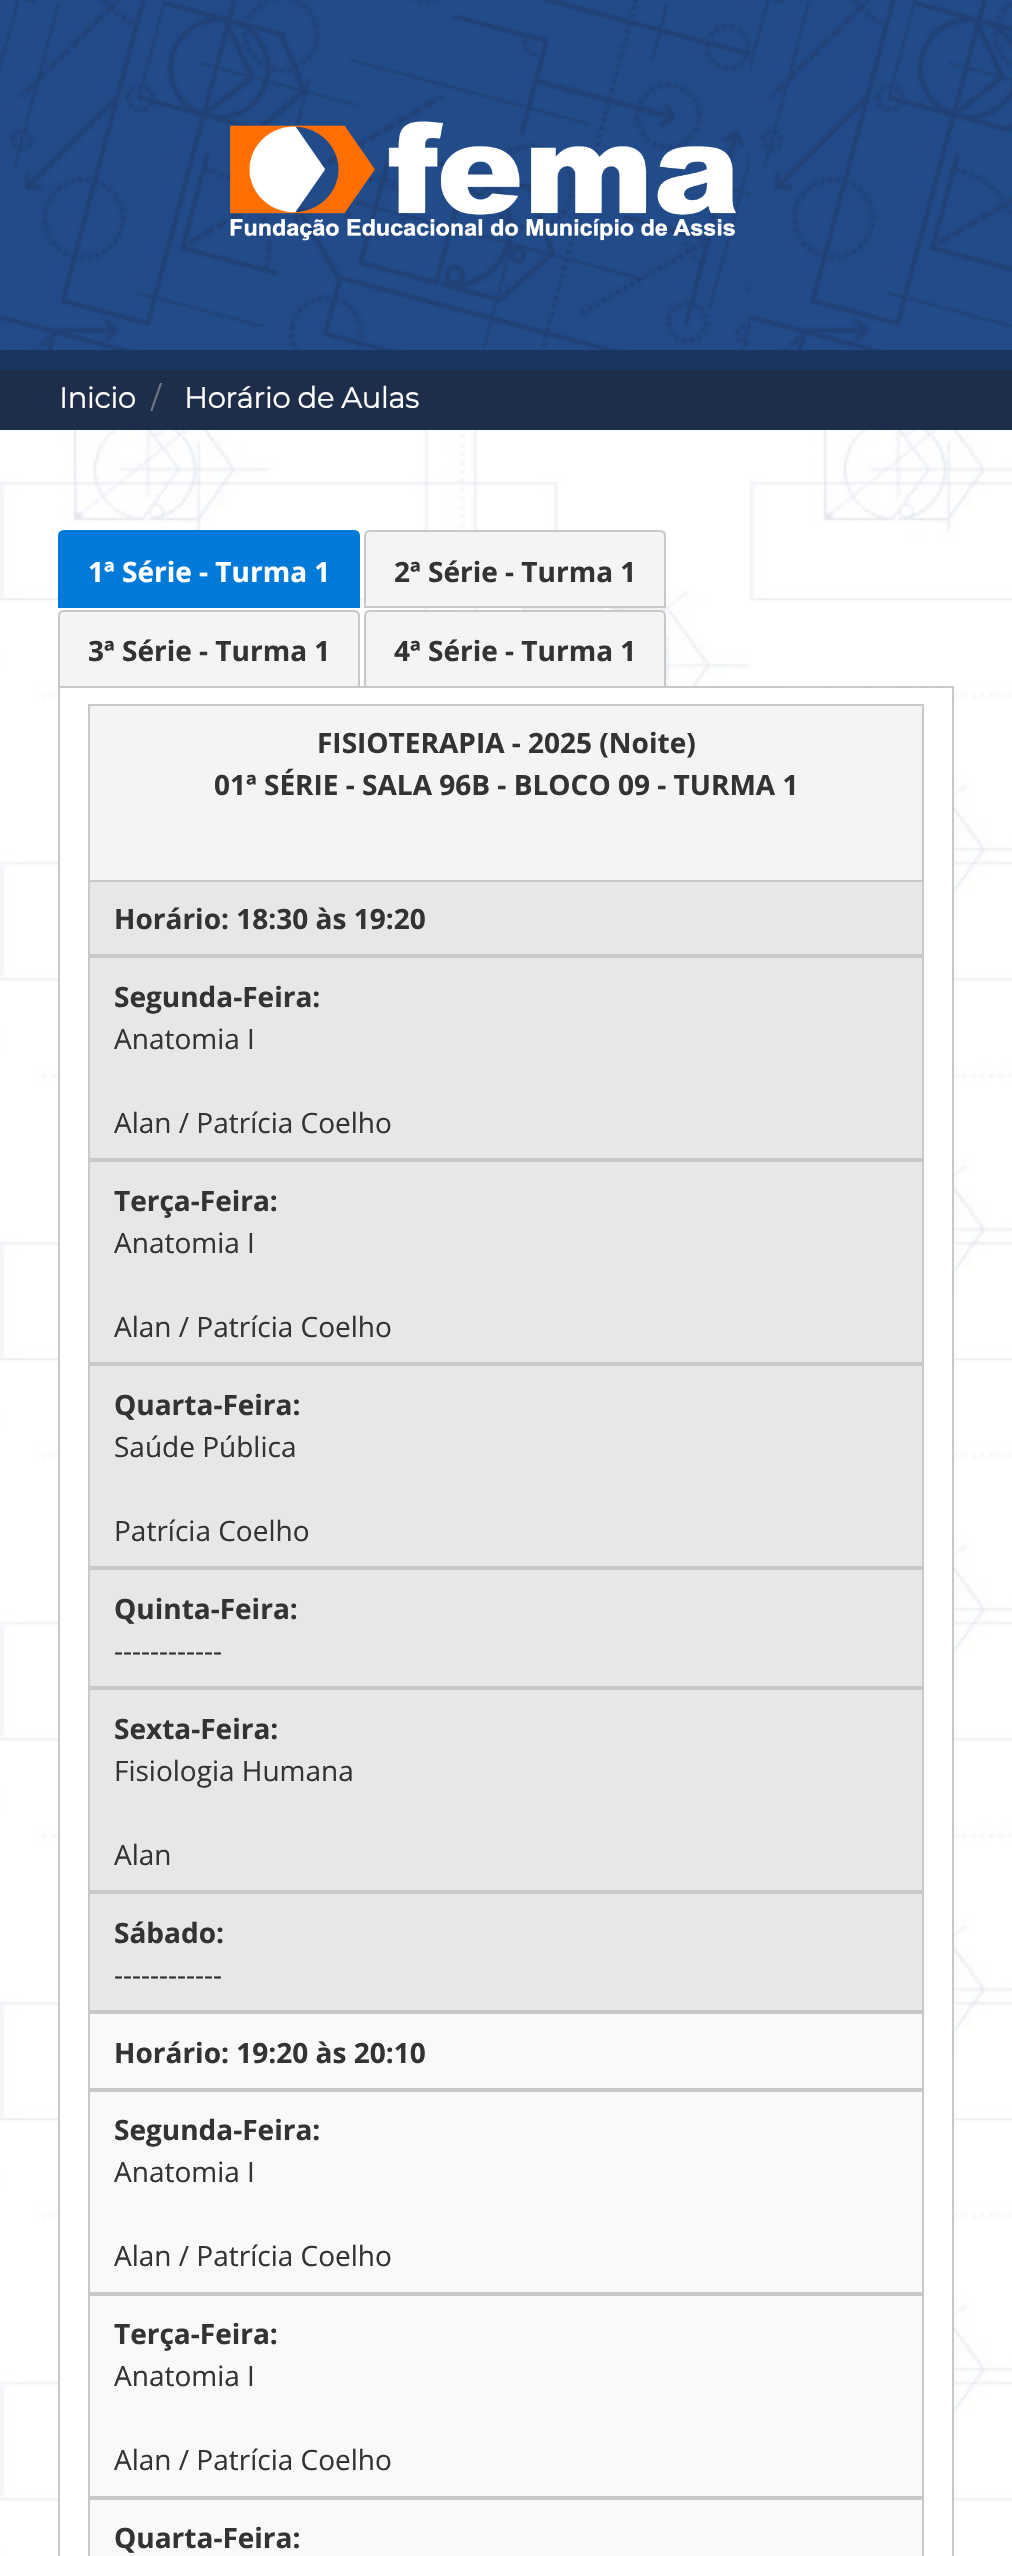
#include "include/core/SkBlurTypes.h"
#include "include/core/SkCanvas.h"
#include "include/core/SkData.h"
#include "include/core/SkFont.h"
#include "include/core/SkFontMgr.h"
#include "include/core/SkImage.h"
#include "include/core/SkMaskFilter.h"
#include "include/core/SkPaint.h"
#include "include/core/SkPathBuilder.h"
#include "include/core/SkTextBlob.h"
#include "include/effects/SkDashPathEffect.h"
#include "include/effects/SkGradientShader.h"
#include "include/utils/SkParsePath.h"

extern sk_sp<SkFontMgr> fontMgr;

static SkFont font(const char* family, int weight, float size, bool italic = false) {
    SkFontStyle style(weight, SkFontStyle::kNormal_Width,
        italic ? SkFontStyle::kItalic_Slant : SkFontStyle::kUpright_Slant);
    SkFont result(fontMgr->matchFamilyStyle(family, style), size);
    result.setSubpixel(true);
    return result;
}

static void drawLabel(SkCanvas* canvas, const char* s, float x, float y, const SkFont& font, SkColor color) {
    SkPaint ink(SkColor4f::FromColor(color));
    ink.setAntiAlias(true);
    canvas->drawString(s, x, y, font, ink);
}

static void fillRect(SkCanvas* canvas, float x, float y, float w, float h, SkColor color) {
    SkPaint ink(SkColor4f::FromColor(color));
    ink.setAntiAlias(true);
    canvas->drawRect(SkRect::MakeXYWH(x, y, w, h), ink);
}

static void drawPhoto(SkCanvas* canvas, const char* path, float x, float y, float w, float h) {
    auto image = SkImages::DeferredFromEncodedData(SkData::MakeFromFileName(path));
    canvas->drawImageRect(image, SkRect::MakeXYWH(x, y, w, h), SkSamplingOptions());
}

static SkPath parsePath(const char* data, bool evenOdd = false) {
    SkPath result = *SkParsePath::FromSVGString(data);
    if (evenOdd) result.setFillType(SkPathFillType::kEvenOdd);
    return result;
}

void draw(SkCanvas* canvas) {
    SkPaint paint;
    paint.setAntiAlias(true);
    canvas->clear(0xFFFFFFFF);
    drawPhoto(canvas, "assets/img1.png", 0, 430, 1012, 2126);
    drawPhoto(canvas, "assets/img2.png", 0, 0, 1012, 350);
    drawPhoto(canvas, "assets/img3.png", 230, 121, 506, 120);
    paint.setColor(0xFF1E2D49);
    canvas->drawPath(parsePath("M-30 350V430H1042V350H1012V370H0V350Z"), paint);
    fillRect(canvas, 0, 350, 1012, 20, 0xFF1B3561);
    SkFont font1 = font("Montserrat", 700, 28.75f);
    drawLabel(canvas, "Inicio", 59, 408, font1, 0xFFFFFFFF);
    drawLabel(canvas, "/", 151, 408, font1, 0xFF6C757D);
    drawLabel(canvas, "Horário de Aulas", 184, 408, font1, 0xFFFFFFFF);
    paint.setColor(0xFF007AD9);
    canvas->drawPath(parsePath("M64 531H354C357 531 359 533 359 536V607H59V536C59 533 61 531 64 531Z"), paint);
    paint.setStroke(true);
    paint.setStrokeWidth(2);
    canvas->drawPath(parsePath("M64 531H354C357 531 359 533 359 536V607H59V536C59 533 61 531 64 531Z"), paint);
    SkFont font2 = font("Open Sans", 700, 28);
    drawLabel(canvas, "1ª Série - Turma 1", 88, 582, font2, 0xFFFFFFFF);
    paint.setStroke(false);
    paint.setColor(0xFFF4F4F4);
    canvas->drawPath(parsePath("M370 531H660C663 531 665 533 665 536V607H365V536C365 533 367 531 370 531Z"), paint);
    paint.setStroke(true);
    paint.setColor(0xFFC8C8C8);
    canvas->drawPath(parsePath("M370 531H660C663 531 665 533 665 536V607H365V536C365 533 367 531 370 531Z"), paint);
    drawLabel(canvas, "2ª Série - Turma 1", 394, 582, font2, 0xFF333333);
    paint.setStroke(false);
    paint.setColor(0xFFFFFFFF);
    canvas->drawRect(SkRect::MakeXYWH(59, 687, 894, 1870), paint);
    paint.setStroke(true);
    paint.setColor(0xFFC8C8C8);
    canvas->drawRect(SkRect::MakeXYWH(59, 687, 894, 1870), paint);
    paint.setStroke(false);
    paint.setColor(0xFFF4F4F4);
    canvas->drawPath(parsePath("M64 611H354C357 611 359 613 359 616V687H59V616C59 613 61 611 64 611Z"), paint);
    paint.setStroke(true);
    paint.setColor(0xFFC8C8C8);
    canvas->drawPath(parsePath("M64 611H354C357 611 359 613 359 616V687H59V616C59 613 61 611 64 611Z"), paint);
    drawLabel(canvas, "3ª Série - Turma 1", 88, 661, font2, 0xFF333333);
    paint.setStroke(false);
    paint.setColor(0xFFF4F4F4);
    canvas->drawPath(parsePath("M370 611H660C663 611 665 613 665 616V687H365V616C365 613 367 611 370 611Z"), paint);
    paint.setStroke(true);
    paint.setColor(0xFFC8C8C8);
    canvas->drawPath(parsePath("M370 611H660C663 611 665 613 665 616V687H365V616C365 613 367 611 370 611Z"), paint);
    drawLabel(canvas, "4ª Série - Turma 1", 394, 661, font2, 0xFF333333);
    fillRect(canvas, 90, 706, 832, 174, 0xFFF4F4F4);
    fillRect(canvas, 88, 704, 836, 2, 0xFFC8C8C8);
    fillRect(canvas, 922, 704, 2, 176, 0xFFC8C8C8);
    fillRect(canvas, 88, 704, 2, 176, 0xFFC8C8C8);
    drawLabel(canvas, "FISIOTERAPIA - 2025 (Noite)", 317, 753, font2, 0xFF333333);
    drawLabel(canvas, "01ª SÉRIE - SALA 96B - BLOCO 09 - TURMA 1", 214, 795, font2, 0xFF333333);
    paint.setStroke(false);
    paint.setColor(0xFFE7E7E7);
    canvas->drawRect(SkRect::MakeXYWH(89, 881, 834, 74), paint);
    paint.setStroke(true);
    paint.setColor(0xFFC8C8C8);
    canvas->drawRect(SkRect::MakeXYWH(89, 881, 834, 74), paint);
    drawLabel(canvas, "Horário: 18:30 às 19:20", 114, 929, font2, 0xFF333333);
    paint.setStroke(false);
    paint.setColor(0xFFE7E7E7);
    canvas->drawRect(SkRect::MakeXYWH(89, 957, 834, 202), paint);
    paint.setStroke(true);
    paint.setColor(0xFFC8C8C8);
    canvas->drawRect(SkRect::MakeXYWH(89, 957, 834, 202), paint);
    drawLabel(canvas, "Segunda-Feira:", 114, 1007, font2, 0xFF333333);
    SkFont font3 = font("Open Sans", 400, 28);
    drawLabel(canvas, "Anatomia I", 114, 1049, font3, 0xFF333333);
    drawLabel(canvas, "Alan / Patrícia Coelho", 114, 1133, font3, 0xFF333333);
    paint.setStroke(false);
    paint.setColor(0xFFE7E7E7);
    canvas->drawRect(SkRect::MakeXYWH(89, 1161, 834, 202), paint);
    paint.setStroke(true);
    paint.setColor(0xFFC8C8C8);
    canvas->drawRect(SkRect::MakeXYWH(89, 1161, 834, 202), paint);
    drawLabel(canvas, "Terça-Feira:", 114, 1211, font2, 0xFF333333);
    drawLabel(canvas, "Anatomia I", 114, 1253, font3, 0xFF333333);
    drawLabel(canvas, "Alan / Patrícia Coelho", 114, 1337, font3, 0xFF333333);
    paint.setStroke(false);
    paint.setColor(0xFFE7E7E7);
    canvas->drawRect(SkRect::MakeXYWH(89, 1365, 834, 202), paint);
    paint.setStroke(true);
    paint.setColor(0xFFC8C8C8);
    canvas->drawRect(SkRect::MakeXYWH(89, 1365, 834, 202), paint);
    drawLabel(canvas, "Quarta-Feira:", 114, 1415, font2, 0xFF333333);
    drawLabel(canvas, "Saúde Pública", 114, 1457, font3, 0xFF333333);
    drawLabel(canvas, "Patrícia Coelho", 114, 1541, font3, 0xFF333333);
    paint.setStroke(false);
    paint.setColor(0xFFE7E7E7);
    canvas->drawRect(SkRect::MakeXYWH(89, 1569, 834, 118), paint);
    paint.setStroke(true);
    paint.setColor(0xFFC8C8C8);
    canvas->drawRect(SkRect::MakeXYWH(89, 1569, 834, 118), paint);
    drawLabel(canvas, "Quinta-Feira:", 114, 1619, font2, 0xFF333333);
    drawLabel(canvas, "------------", 114, 1661, font3, 0xFF333333);
    paint.setStroke(false);
    paint.setColor(0xFFE7E7E7);
    canvas->drawRect(SkRect::MakeXYWH(89, 1689, 834, 202), paint);
    paint.setStroke(true);
    paint.setColor(0xFFC8C8C8);
    canvas->drawRect(SkRect::MakeXYWH(89, 1689, 834, 202), paint);
    drawLabel(canvas, "Sexta-Feira:", 114, 1739, font2, 0xFF333333);
    drawLabel(canvas, "Fisiologia Humana", 114, 1781, font3, 0xFF333333);
    drawLabel(canvas, "Alan", 114, 1865, font3, 0xFF333333);
    paint.setStroke(false);
    paint.setColor(0xFFE7E7E7);
    canvas->drawRect(SkRect::MakeXYWH(89, 1893, 834, 118), paint);
    paint.setStroke(true);
    paint.setColor(0xFFC8C8C8);
    canvas->drawRect(SkRect::MakeXYWH(89, 1893, 834, 118), paint);
    drawLabel(canvas, "Sábado:", 114, 1943, font2, 0xFF333333);
    drawLabel(canvas, "------------", 114, 1985, font3, 0xFF333333);
    fillRect(canvas, 90, 2014, 832, 542, 0xFFF9F9F9);
    canvas->drawRect(SkRect::MakeXYWH(89, 2013, 834, 76), paint);
    drawLabel(canvas, "Horário: 19:20 às 20:10", 114, 2063, font2, 0xFF333333);
    canvas->drawRect(SkRect::MakeXYWH(89, 2091, 834, 202), paint);
    drawLabel(canvas, "Segunda-Feira:", 114, 2140, font2, 0xFF333333);
    drawLabel(canvas, "Anatomia I", 114, 2182, font3, 0xFF333333);
    drawLabel(canvas, "Alan / Patrícia Coelho", 114, 2266, font3, 0xFF333333);
    canvas->drawRect(SkRect::MakeXYWH(89, 2295, 834, 202), paint);
    drawLabel(canvas, "Terça-Feira:", 114, 2344, font2, 0xFF333333);
    drawLabel(canvas, "Anatomia I", 114, 2386, font3, 0xFF333333);
    drawLabel(canvas, "Alan / Patrícia Coelho", 114, 2470, font3, 0xFF333333);
    canvas->drawRect(SkRect::MakeXYWH(89, 2499, 834, 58), paint);
    drawLabel(canvas, "Quarta-Feira:", 114, 2548, font2, 0xFF333333);
}
